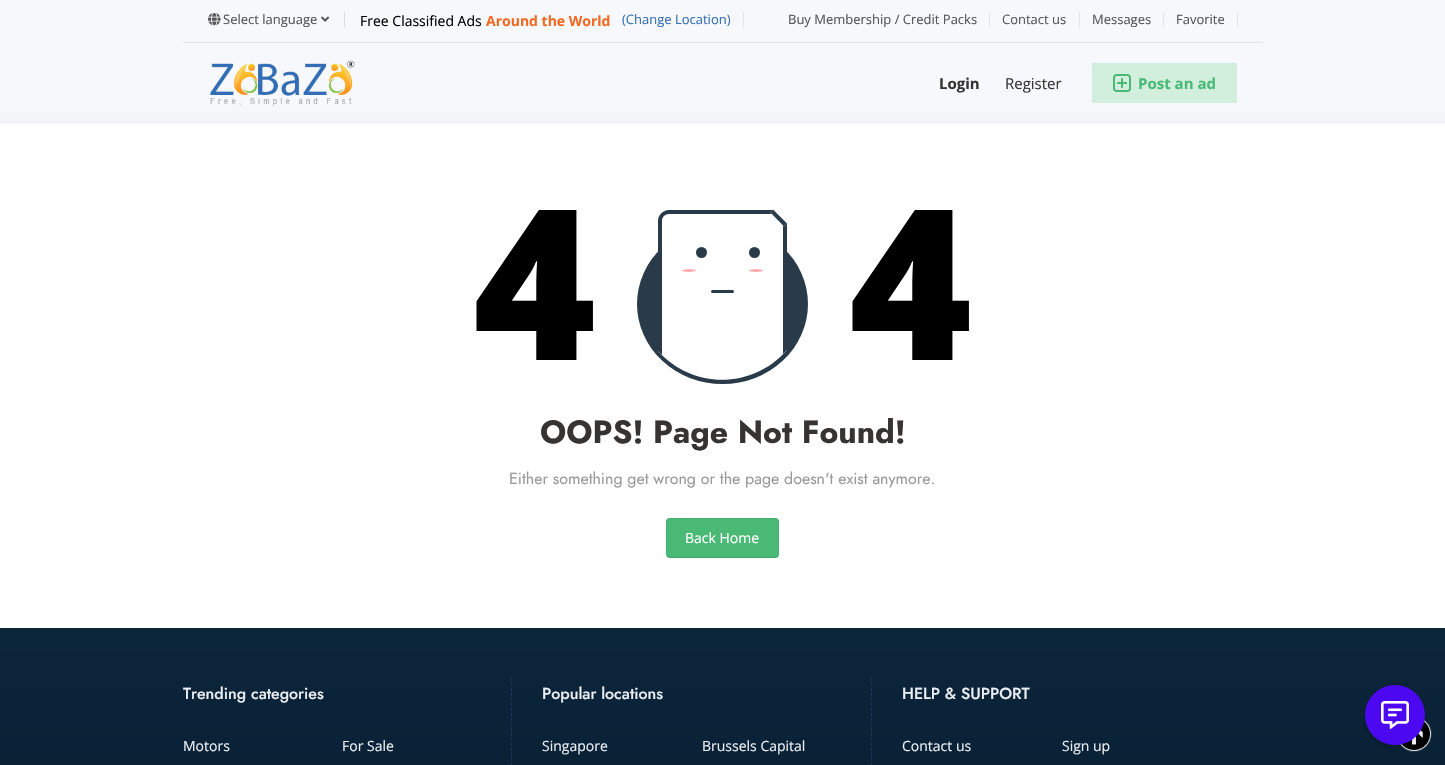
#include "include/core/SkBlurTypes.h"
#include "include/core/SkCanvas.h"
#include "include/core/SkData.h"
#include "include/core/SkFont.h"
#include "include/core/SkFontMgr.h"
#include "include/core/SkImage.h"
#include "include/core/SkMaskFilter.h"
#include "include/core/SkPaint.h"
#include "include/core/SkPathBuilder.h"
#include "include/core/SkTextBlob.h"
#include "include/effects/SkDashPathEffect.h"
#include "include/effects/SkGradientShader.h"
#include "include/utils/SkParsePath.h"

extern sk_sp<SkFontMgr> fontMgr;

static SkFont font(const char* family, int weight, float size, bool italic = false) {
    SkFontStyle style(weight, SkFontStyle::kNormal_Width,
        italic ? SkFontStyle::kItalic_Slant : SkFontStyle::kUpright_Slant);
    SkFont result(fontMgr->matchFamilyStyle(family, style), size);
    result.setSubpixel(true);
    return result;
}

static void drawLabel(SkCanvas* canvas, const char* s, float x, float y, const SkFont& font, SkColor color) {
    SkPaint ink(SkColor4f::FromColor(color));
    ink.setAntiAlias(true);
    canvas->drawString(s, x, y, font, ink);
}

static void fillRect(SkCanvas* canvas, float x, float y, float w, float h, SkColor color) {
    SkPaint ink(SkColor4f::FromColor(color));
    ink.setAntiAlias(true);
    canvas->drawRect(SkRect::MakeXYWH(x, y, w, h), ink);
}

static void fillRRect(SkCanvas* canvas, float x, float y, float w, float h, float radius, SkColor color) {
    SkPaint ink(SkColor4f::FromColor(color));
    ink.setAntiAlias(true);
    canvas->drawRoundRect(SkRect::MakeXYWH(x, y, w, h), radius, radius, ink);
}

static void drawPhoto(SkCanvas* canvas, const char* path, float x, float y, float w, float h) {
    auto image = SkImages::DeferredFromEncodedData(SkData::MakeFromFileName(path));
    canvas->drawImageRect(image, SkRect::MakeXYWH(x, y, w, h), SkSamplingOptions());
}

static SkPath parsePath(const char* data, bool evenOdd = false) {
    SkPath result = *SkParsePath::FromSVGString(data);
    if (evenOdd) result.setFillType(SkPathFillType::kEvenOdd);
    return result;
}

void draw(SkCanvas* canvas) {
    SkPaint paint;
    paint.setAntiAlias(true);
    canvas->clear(0xFFFFFFFF);
    {
        const SkColor colors[] = {0xFFF7F8FB, 0xFFF0F2F7};
        const float stops[] = {0.85f, 1};
        const SkPoint ends[] = {{723, 0}, {723, 123}};
        paint.setShader(SkGradientShader::MakeLinear(ends, colors, stops, 2, SkTileMode::kClamp));
        paint.setAlpha(255);
    }
    canvas->drawRect(SkRect::MakeXYWH(0, 0, 1445, 123), paint);
    {
        const SkColor colors[] = {0xFFF7F8FB, 0xFFF0F2F7};
        const float stops[] = {0.85f, 1};
        const SkPoint ends[] = {{723, 123}, {723, 246}};
        paint.setShader(SkGradientShader::MakeLinear(ends, colors, stops, 2, SkTileMode::kClamp));
        paint.setAlpha(255);
    }
    canvas->drawRect(SkRect::MakeXYWH(0, 123, 1445, 1), paint);
    fillRect(canvas, 183, 42, 1080, 1, 0xFFDFE3ED);
    fillRect(canvas, 344, 12, 1, 15, 0xFFDDDDDD);
    drawPhoto(canvas, "assets/img1.png", 208, 12, 13, 14);
    SkFont font1 = font("Open Sans", 400, 13);
    drawLabel(canvas, "Select language", 223, 24, font1, 0xFF555555);
    drawPhoto(canvas, "assets/img2.png", 321, 16, 9, 6);
    SkFont font2 = font("Open Sans", 400, 14);
    drawLabel(canvas, "Free Classified Ads", 360, 26, font2, 0xFF000000);
    SkFont font3 = font("Open Sans", 700, 14);
    drawLabel(canvas, "Around the World", 486, 26, font3, 0xFFF26921);
    fillRect(canvas, 743, 12, 1, 15, 0xFFDFE3ED);
    drawLabel(canvas, "(Change Location)", 622, 24, font1, 0xFF326DB5);
    fillRect(canvas, 989, 12, 1, 15, 0xFFDFE3ED);
    drawLabel(canvas, "Buy Membership / Credit Packs", 788, 24, font1, 0xFF555555);
    fillRect(canvas, 1079, 12, 1, 15, 0xFFDFE3ED);
    drawLabel(canvas, "Contact us", 1002, 24, font1, 0xFF555555);
    fillRect(canvas, 1163, 12, 1, 15, 0xFFDFE3ED);
    drawLabel(canvas, "Messages", 1092, 24, font1, 0xFF555555);
    fillRect(canvas, 1237, 12, 1, 15, 0xFFDFE3ED);
    drawLabel(canvas, "Favorite", 1176, 24, font1, 0xFF555555);
    drawPhoto(canvas, "assets/img3.png", 210, 60, 145, 46);
    SkFont font4 = font("Open Sans", 700, 15);
    drawLabel(canvas, "Login", 939, 89, font4, 0xFF363433);
    SkFont font5 = font("Open Sans", 400, 15);
    drawLabel(canvas, "Register", 1005, 89, font5, 0xFF363433);
    fillRRect(canvas, 1092, 63, 145, 40, 4, 0xFF49B975);
    fillRRect(canvas, 1092, 63, 145, 40, 4, 0xBFFFFFFF);
    drawPhoto(canvas, "assets/img4.png", 1113, 74, 18, 18);
    drawLabel(canvas, "Post an ad", 1138, 89, font4, 0xFF49B975);
    SkFont font6 = font("Open Sans", 800, 210);
    drawLabel(canvas, "4", 473, 360, font6, 0xFF000000);
    paint.setShader(nullptr);
    paint.setColor(0xFF293B49);
    canvas->drawOval(SkRect::MakeXYWH(637, 224, 171, 160), paint);
    paint.setColor(0xFFFFFFFF);
    canvas->drawPath(parsePath("M669 210H776C782 210 787 215 787 221V350C753 389 693 390 658 351V221C658 215 663 210 669 210Z"), paint);
    paint.setColor(0xFF293B49);
    canvas->drawPath(parsePath("M669 210C663 210 658 215 658 221V351L662 355V221C662 217 665 214 669 214H776C780 214 783 217 783 221V354L787 350V221C787 215 782 210 776 210Z"), paint);
    paint.setColor(0xFFFFFFFF);
    canvas->drawPath(parsePath("M780 202.5L794 216.5L784 226.5L770.5 212.5Z"), paint);
    paint.setColor(0xFF293B49);
    canvas->drawPath(parsePath("M773 209.5L787 223.5L784 226.5L770.5 212.5Z"), paint);
    canvas->drawCircle(701.5f, 252.5f, 5.5f, paint);
    canvas->drawCircle(754.5f, 252.5f, 5.5f, paint);
    paint.setColor(0xFFFDABAF);
    canvas->drawOval(SkRect::MakeXYWH(682, 269, 14, 3), paint);
    canvas->drawOval(SkRect::MakeXYWH(749, 269, 14, 3), paint);
    fillRRect(canvas, 711, 290, 23, 3, 1.5f, 0xFF293B49);
    drawLabel(canvas, "4", 849, 360, font6, 0xFF000000);
    SkFont font7 = font("Jost", 700, 32);
    drawLabel(canvas, "OOPS! Page Not Found!", 540, 443, font7, 0xFF363433);
    SkFont font8 = font("Jost", 400, 16);
    drawLabel(canvas, "Either something get wrong or the page doesn't exist anymore.", 509, 484, font8, 0xFF999999);
    fillRRect(canvas, 666, 518, 113, 40, 4, 0xFF49B975);
    paint.setStroke(true);
    paint.setStrokeWidth(1);
    paint.setColor(0x1A000000);
    canvas->drawPath(parsePath("M777.5 556.5L775.5 557.5H687.5H670L667.5 556.5"), paint);
    paint.setColor(0x0D000000);
    canvas->drawPath(parsePath("M667.5 556.5C665.5 554.5 666.5 550.5 666.5 548.5V538C666.5 514.5 662.5 518.5 687.5 518.5H775C779.5 518.5 778.5 524.5 778.5 527.5V543.5C778.5 546 780 554 777.5 556.5"), paint);
    drawLabel(canvas, "Back Home", 685, 543, font2, 0xFFFFFFFF);
    paint.setStroke(false);
    {
        const SkColor colors[] = {0xFF0B253B, 0xFF081928};
        const float stops[] = {0, 0.72f};
        const SkPoint ends[] = {{723, 628}, {723, 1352}};
        paint.setShader(SkGradientShader::MakeLinear(ends, colors, stops, 2, SkTileMode::kClamp));
        paint.setAlpha(255);
    }
    canvas->drawRect(SkRect::MakeXYWH(0, 628, 1445, 137), paint);
    paint.setStroke(true);
    paint.setShader(nullptr);
    paint.setColor(0xFF163A57);
    paint.setPathEffect(SkDashPathEffect::Make({{3, 1.98f}}, 0));
    canvas->drawPath(parsePath("M511.5 678V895"), paint);
    paint.setPathEffect(nullptr);
    SkFont font9 = font("Jost", 500, 16);
    drawLabel(canvas, "Trending categories", 183, 699, font9, 0xFFEBEEF2);
    drawLabel(canvas, "Motors", 183, 751, font2, 0xFFEBEEF2);
    drawLabel(canvas, "For Sale", 342, 751, font2, 0xFFEBEEF2);
    paint.setPathEffect(SkDashPathEffect::Make({{3, 1.98f}}, 0));
    canvas->drawPath(parsePath("M871.5 678V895"), paint);
    paint.setPathEffect(nullptr);
    drawLabel(canvas, "Popular locations", 542, 699, font9, 0xFFEBEEF2);
    drawLabel(canvas, "Singapore", 542, 751, font2, 0xFFEBEEF2);
    drawLabel(canvas, "Brussels Capital", 702, 751, font2, 0xFFEBEEF2);
    drawLabel(canvas, "HELP & SUPPORT", 902, 699, font9, 0xFFEBEEF2);
    drawLabel(canvas, "Contact us", 902, 751, font2, 0xFFEBEEF2);
    drawLabel(canvas, "Sign up", 1062, 751, font2, 0xFFEBEEF2);
    paint.setStroke(false);
    paint.setColor(0xFFFFFFFF);
    paint.setMaskFilter(SkMaskFilter::MakeBlur(kNormal_SkBlurStyle, 0.5f));
    canvas->drawRoundRect(SkRect::MakeXYWH(1397, 717, 34, 34), 17, 17, paint);
    paint.setMaskFilter(nullptr);
    canvas->drawCircle(1414, 734, 16, paint);
    drawPhoto(canvas, "assets/img6.png", 1402, 721, 28, 29);
    paint.setColor(0x33000000);
    paint.setMaskFilter(SkMaskFilter::MakeBlur(kNormal_SkBlurStyle, 3));
    canvas->drawRoundRect(SkRect::MakeXYWH(1365, 687, 60, 60), 30, 30, paint);
    paint.setMaskFilter(nullptr);
    paint.setColor(0xFF4D08F2);
    canvas->drawCircle(1395, 715, 30, paint);
    drawPhoto(canvas, "assets/img5.png", 1381, 701, 28, 28);
}
